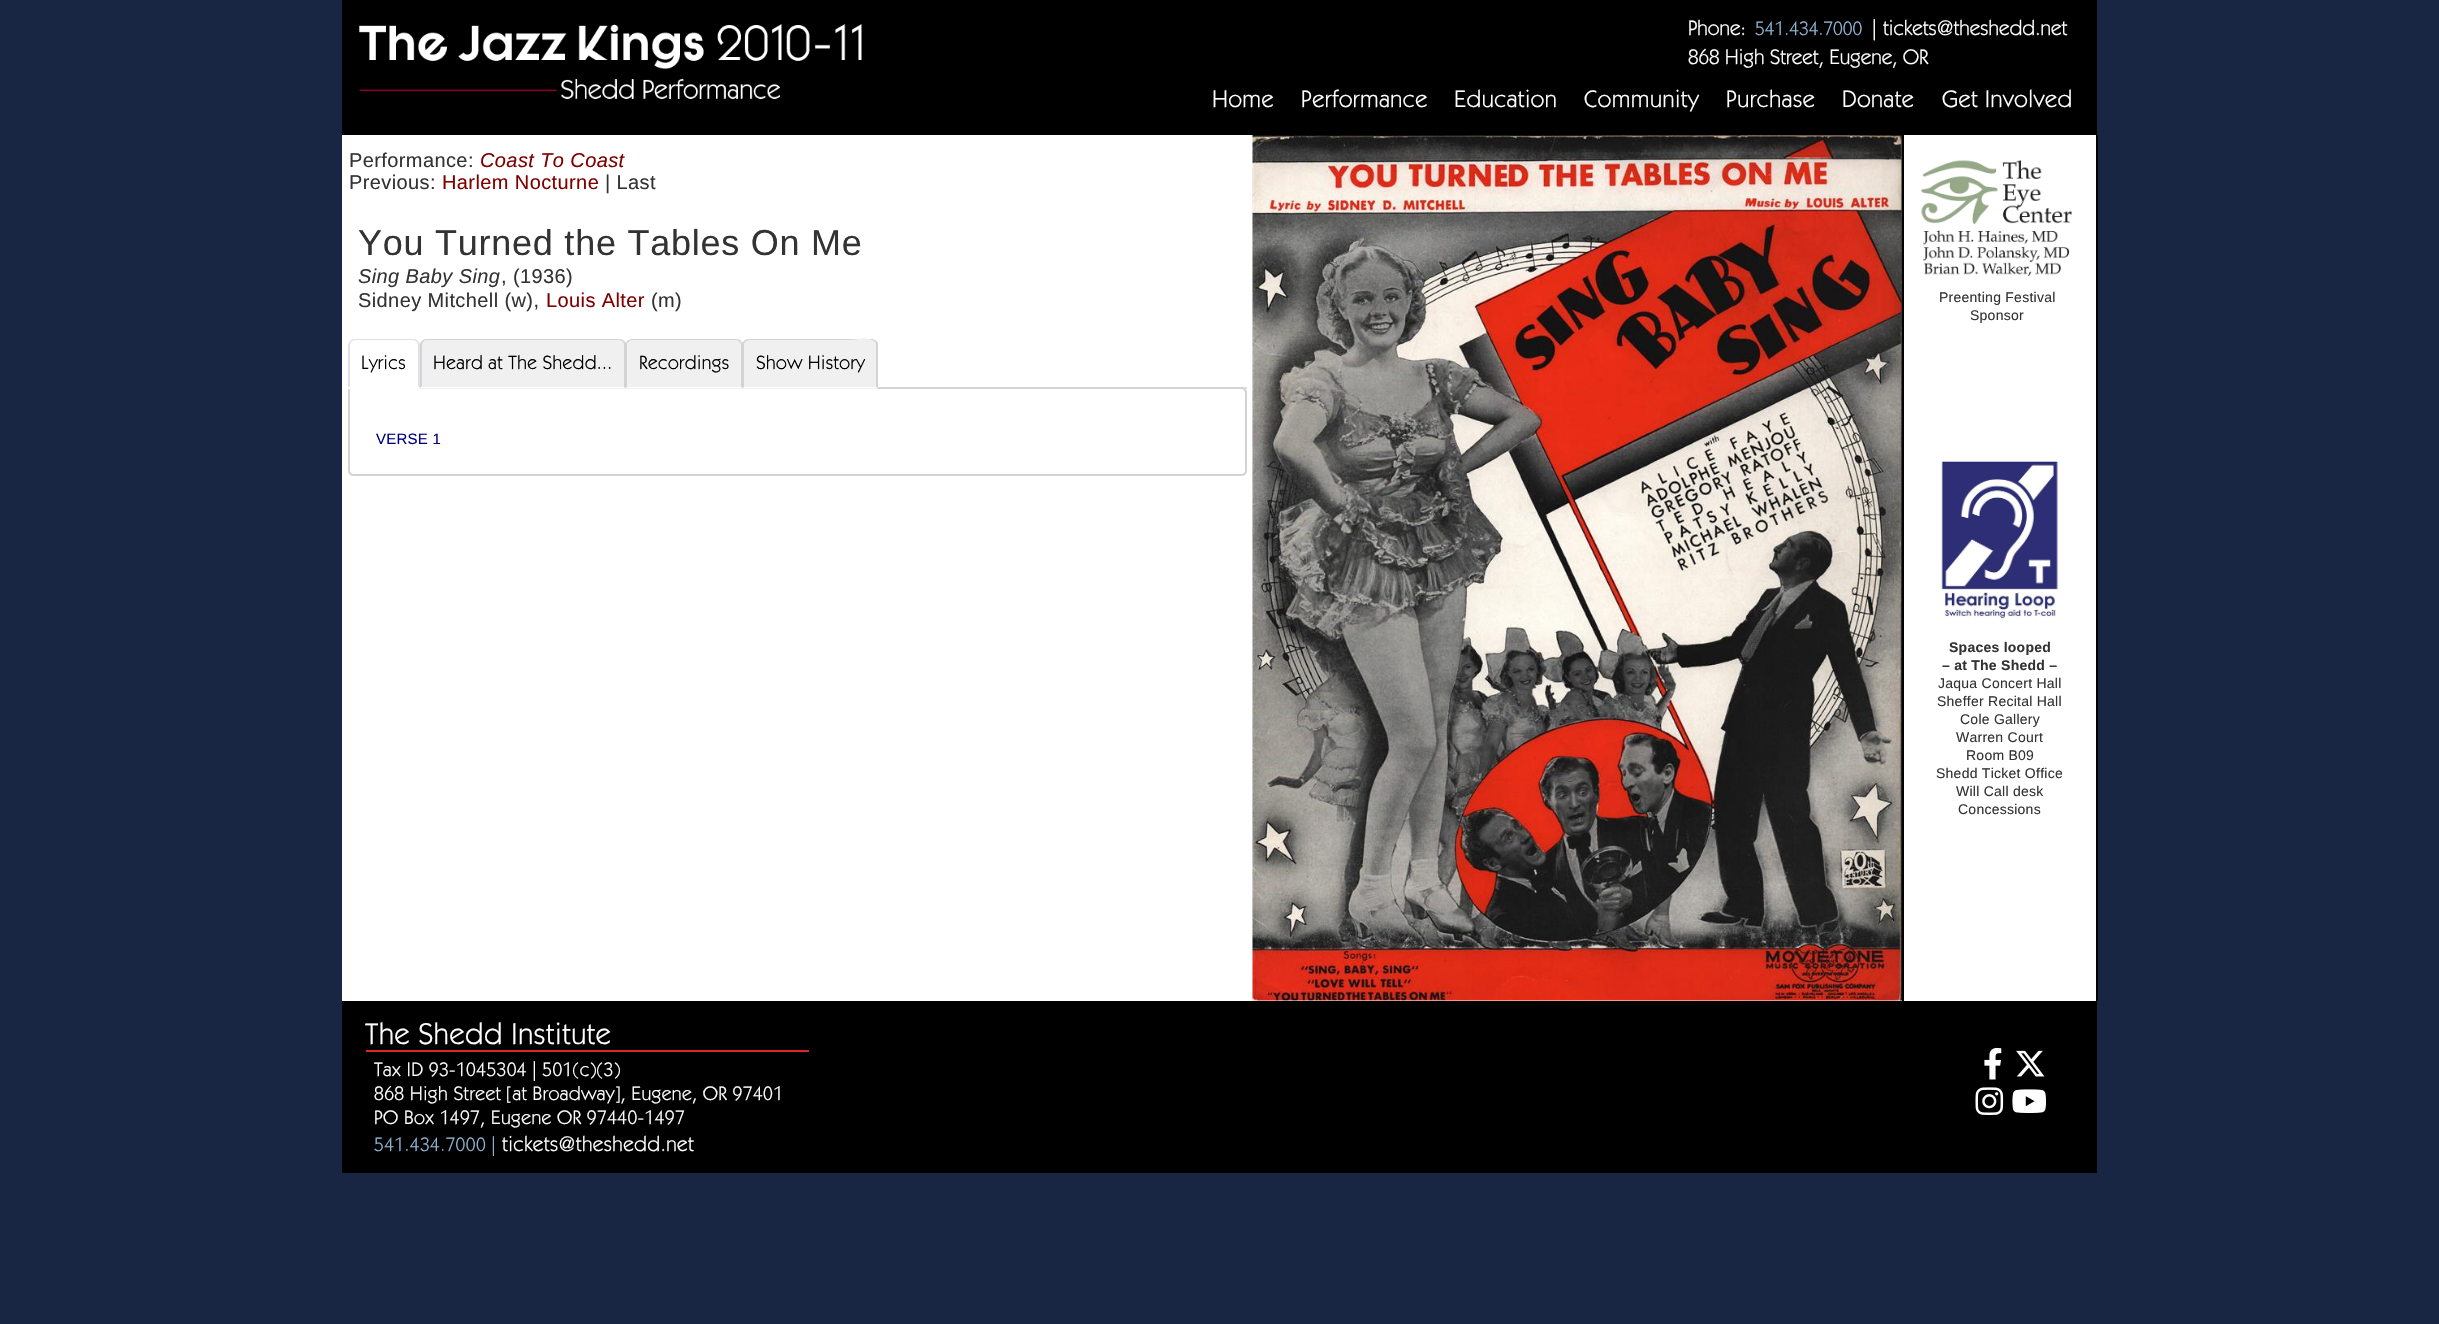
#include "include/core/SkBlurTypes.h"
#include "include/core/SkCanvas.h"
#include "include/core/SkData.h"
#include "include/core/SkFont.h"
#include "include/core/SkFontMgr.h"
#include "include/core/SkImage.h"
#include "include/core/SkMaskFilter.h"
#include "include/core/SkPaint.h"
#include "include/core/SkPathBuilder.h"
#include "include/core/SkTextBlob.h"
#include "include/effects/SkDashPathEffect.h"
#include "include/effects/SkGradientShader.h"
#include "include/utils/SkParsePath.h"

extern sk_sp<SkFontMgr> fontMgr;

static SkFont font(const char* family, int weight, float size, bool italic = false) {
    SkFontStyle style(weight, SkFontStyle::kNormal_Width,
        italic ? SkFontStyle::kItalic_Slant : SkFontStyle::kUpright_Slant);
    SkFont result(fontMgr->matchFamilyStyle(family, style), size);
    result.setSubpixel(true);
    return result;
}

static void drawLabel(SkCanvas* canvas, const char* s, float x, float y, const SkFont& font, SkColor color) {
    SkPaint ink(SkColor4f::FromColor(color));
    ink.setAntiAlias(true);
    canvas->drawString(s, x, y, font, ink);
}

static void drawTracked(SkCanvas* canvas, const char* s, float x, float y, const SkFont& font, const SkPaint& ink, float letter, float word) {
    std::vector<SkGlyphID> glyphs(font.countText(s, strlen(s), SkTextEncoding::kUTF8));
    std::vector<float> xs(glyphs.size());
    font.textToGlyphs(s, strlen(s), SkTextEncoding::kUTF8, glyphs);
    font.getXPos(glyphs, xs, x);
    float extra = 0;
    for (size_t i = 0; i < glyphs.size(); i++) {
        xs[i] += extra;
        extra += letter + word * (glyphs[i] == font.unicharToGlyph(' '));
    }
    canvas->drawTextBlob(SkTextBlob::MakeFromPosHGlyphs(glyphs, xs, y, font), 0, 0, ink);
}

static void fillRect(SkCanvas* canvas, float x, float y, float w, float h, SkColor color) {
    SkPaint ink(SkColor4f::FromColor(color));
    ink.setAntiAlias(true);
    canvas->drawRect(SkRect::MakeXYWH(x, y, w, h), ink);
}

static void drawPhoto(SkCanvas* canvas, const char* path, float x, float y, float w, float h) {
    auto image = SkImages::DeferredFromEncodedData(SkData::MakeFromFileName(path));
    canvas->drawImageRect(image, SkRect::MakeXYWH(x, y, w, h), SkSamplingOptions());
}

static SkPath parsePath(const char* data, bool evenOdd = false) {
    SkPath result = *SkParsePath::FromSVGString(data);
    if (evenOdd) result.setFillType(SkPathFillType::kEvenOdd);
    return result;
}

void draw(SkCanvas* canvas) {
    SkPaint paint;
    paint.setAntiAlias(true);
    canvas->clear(0xFF182543);
    fillRect(canvas, 342, 0, 1755, 135, 0xFF000000);
    drawPhoto(canvas, "assets/img1.png", 359, 24, 503, 75);
    SkFont font1 = font("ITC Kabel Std", 400, 21);
    drawLabel(canvas, "Phone:", 1688, 35, font1, 0xFFFFFFFF);
    SkFont font2 = font("ITC Kabel Std", 400, 19.5f);
    drawLabel(canvas, "541.434.7000", 1755, 35, font2, 0xFF8EB4D3);
    drawLabel(canvas, "|", 1872, 35, font1, 0xFFFFFFFF);
    drawLabel(canvas, "tickets@theshedd.net", 1883, 35, font1, 0xFFFFFFFF);
    drawLabel(canvas, "868 High Street, Eugene, OR", 1688, 64, font1, 0xFFFFFFFF);
    SkFont font3 = font("ITC Kabel Std", 400, 24);
    paint.setColor(0xFFFFFFFF);
    drawTracked(canvas, "Home", 1212, 107, font3, paint, 0.5f, 0);
    drawTracked(canvas, "Performance", 1301, 107, font3, paint, 0.5f, 0);
    drawTracked(canvas, "Education", 1454, 107, font3, paint, 0.5f, 0);
    drawTracked(canvas, "Community", 1584, 107, font3, paint, 0.5f, 0);
    drawTracked(canvas, "Purchase", 1726, 107, font3, paint, 0.5f, 0);
    drawTracked(canvas, "Donate", 1842, 107, font3, paint, 0.5f, 0);
    drawTracked(canvas, "Get Involved", 1942, 107, font3, paint, 0.5f, 0);
    fillRect(canvas, 342, 135, 1754, 866, 0xFFFFFFFF);
    SkFont font4 = font("Liberation Sans", 400, 20);
    paint.setColor(0xFF333333);
    drawTracked(canvas, "Performance:", 349, 167, font4, paint, 0.4f, 0);
    SkFont font5 = font("Liberation Sans", 400, 20, true);
    paint.setColor(0xFF800000);
    drawTracked(canvas, "Coast To Coast", 480, 167, font5, paint, 0.4f, 0);
    paint.setColor(0xFF333333);
    drawTracked(canvas, "Previous:", 349, 189, font4, paint, 0.4f, 0);
    paint.setColor(0xFF800000);
    drawTracked(canvas, "Harlem Nocturne", 442, 189, font4, paint, 0.4f, 0);
    paint.setColor(0xFF333333);
    drawTracked(canvas, "| Last", 605, 189, font4, paint, 0.4f, 0);
    SkFont font6 = font("Liberation Sans", 400, 36);
    drawTracked(canvas, "You Turned the Tables On Me", 358, 255, font6, paint, 0.75f, 0);
    drawTracked(canvas, "Sing Baby Sing", 358, 283, font5, paint, 0.4f, 0);
    drawTracked(canvas, ", (1936)", 501, 283, font4, paint, 0.4f, 0);
    drawTracked(canvas, "Sidney Mitchell (w),", 358, 307, font4, paint, 0.4f, 0);
    paint.setColor(0xFF800000);
    drawTracked(canvas, "Louis Alter", 546, 307, font4, paint, 0.4f, 0);
    paint.setColor(0xFF333333);
    drawTracked(canvas, "(m)", 651, 307, font4, paint, 0.4f, 0);
    fillRect(canvas, 1241, 387, 6, 2, 0xFFDEE2E6);
    paint.setStroke(true);
    paint.setStrokeWidth(2);
    paint.setColor(0xFFD3D3D3);
    canvas->drawPath(parsePath("M349 388H1241C1244 388 1246 390 1246 393V470C1246 473 1244 475 1241 475H354C351 475 349 473 349 470Z"), paint);
    paint.setStroke(false);
    paint.setColor(0xFFFFFFFF);
    canvas->drawPath(parsePath("M354 339H414C417.5 339 420 341.5 420 345V389H348V345C348 341.5 350.5 339 354 339Z"), paint);
    paint.setColor(0xFFDEE2E6);
    canvas->drawPath(parsePath("M354 339C352 339 351 340 350 341L351 342L354 340H414L417 342L418 341C417 340 416 339 414 339Z"), paint);
    canvas->drawPath(parsePath("M420 388V345C420 344 419 342 418 341L417 342L418 345V386Z"), paint);
    paint.setColor(0xFFFFFFFF);
    canvas->drawPath(parsePath("M420 388H348L350 386V387H418V386Z"), paint);
    paint.setColor(0xFFDEE2E6);
    canvas->drawPath(parsePath("M348 345V388L350 386V345L351 342L350 341C349 342 348 344 348 345Z"), paint);
    SkFont font7 = font("ITC Kabel Std", 400, 19.25f);
    paint.setColor(0xFF000000);
    drawTracked(canvas, "Lyrics", 361, 369, font7, paint, 0.4f, 0);
    paint.setColor(0xFFF0F0F0);
    canvas->drawPath(parsePath("M426 339H620C623.5 339 626 341.5 626 345V389H420V345C420 341.5 422.5 339 426 339Z"), paint);
    paint.setColor(0xFFD3D3D3);
    canvas->drawPath(parsePath("M426 339C424 339 423 340 422 341L423 342L425 340H620C621 340 622 341 623 342L624 341C623 340 621 339 620 339Z"), paint);
    canvas->drawPath(parsePath("M626 388L624 387V345C624 344 624 343 623 342L624 341L626 343Z"), paint);
    paint.setColor(0xFFFFFFFF);
    canvas->drawPath(parsePath("M625 388H420L422 386V387H624Z"), paint);
    paint.setColor(0xFFD3D3D3);
    canvas->drawPath(parsePath("M420 345V388L422 386V345L423 342L422 341C421 342 420 344 420 345Z"), paint);
    paint.setColor(0xFF000000);
    drawTracked(canvas, "Heard at The Shedd...", 433, 369, font7, paint, 0.4f, 0);
    paint.setColor(0xFFF0F0F0);
    canvas->drawPath(parsePath("M632 339H737C740.5 339 743 341.5 743 345V389H626V345C626 341.5 628.5 339 632 339Z"), paint);
    paint.setColor(0xFFD3D3D3);
    canvas->drawPath(parsePath("M632 339C630 339 628 340 627 341L628 342L631 340H737L740 342L741 341C740 340 738 339 736 339Z"), paint);
    canvas->drawPath(parsePath("M741 341C742 342 742 344 742 345V388L741 387V345C741 344 741 343 740 342Z"), paint);
    paint.setColor(0xFFFFFFFF);
    canvas->drawPath(parsePath("M742 388L741 387H627L626 388Z"), paint);
    paint.setColor(0xFFD3D3D3);
    canvas->drawPath(parsePath("M627 341C626 342 626 344 626 345V388L627 387V345C627 344 627 343 628 342Z"), paint);
    paint.setColor(0xFF000000);
    drawTracked(canvas, "Recordings", 639, 369, font7, paint, 0.4f, 0);
    paint.setColor(0xFFF0F0F0);
    canvas->drawPath(parsePath("M749 339H872C875.5 339 878 341.5 878 345V389H743V345C743 341.5 745.5 339 749 339Z"), paint);
    paint.setColor(0xFFD3D3D3);
    canvas->drawPath(parsePath("M748 339C747 339 745 340 744 341L745 342L748 340H851C852 340 871 336 875 342L876 341C875 340 873 339 872 339Z"), paint);
    canvas->drawPath(parsePath("M878 388L876 387V345C876 344 876 343 875 342L876 341L878 343Z"), paint);
    paint.setColor(0xFFFFFFFF);
    canvas->drawPath(parsePath("M877 388H743L744 387H876Z"), paint);
    paint.setColor(0xFFD3D3D3);
    canvas->drawPath(parsePath("M742 343L744 341L745 342C744 343 744 344 744 345V387L742 388Z"), paint);
    paint.setColor(0xFF000000);
    drawTracked(canvas, "Show History", 756, 369, font7, paint, 0.4f, 0);
    SkFont font8 = font("Liberation Sans", 400, 15);
    paint.setColor(0xFF000080);
    drawTracked(canvas, "VERSE 1", 376, 444, font8, paint, 0.25f, 0);
    drawPhoto(canvas, "assets/img2.png", 1252, 135, 650, 866);
    fillRect(canvas, 2096, 135, 2, 866, 0xFF000000);
    fillRect(canvas, 1902, 135, 2, 866, 0xFF000000);
    drawPhoto(canvas, "assets/img3.png", 1921, 160, 151, 116);
    SkFont font9 = font("Liberation Sans", 400, 14);
    paint.setColor(0xFF333333);
    drawTracked(canvas, "Preenting Festival", 1939, 302, font9, paint, 0.25f, 0);
    drawTracked(canvas, "Sponsor", 1970, 320, font9, paint, 0.25f, 0);
    drawPhoto(canvas, "assets/img4.png", 1939, 460, 120, 159);
    SkFont font10 = font("Liberation Sans", 700, 14);
    drawTracked(canvas, "Spaces looped", 1949, 652, font10, paint, 0.25f, 0);
    drawTracked(canvas, "– at The Shedd –", 1942, 670, font10, paint, 0.25f, 0);
    drawTracked(canvas, "Jaqua Concert Hall", 1938, 688, font9, paint, 0.25f, 0);
    drawTracked(canvas, "Sheffer Recital Hall", 1937, 706, font9, paint, 0.25f, 0);
    drawTracked(canvas, "Cole Gallery", 1960, 724, font9, paint, 0.25f, 0);
    drawTracked(canvas, "Warren Court", 1956, 742, font9, paint, 0.25f, 0);
    drawTracked(canvas, "Room B09", 1966, 760, font9, paint, 0.25f, 0);
    drawTracked(canvas, "Shedd Ticket Office", 1936, 778, font9, paint, 0.25f, 0);
    drawTracked(canvas, "Will Call desk", 1956, 796, font9, paint, 0.25f, 0);
    drawTracked(canvas, "Concessions", 1958, 814, font9, paint, 0.25f, 0);
    fillRect(canvas, 342, 1001, 1755, 172, 0xFF000000);
    fillRect(canvas, 366, 1050, 443, 2, 0xFFD9262A);
    SkFont font11 = font("ITC Kabel Std", 400, 30);
    paint.setColor(0xFFFFFFFF);
    drawTracked(canvas, "The Shedd Institute", 365, 1044, font11, paint, 0.6f, 0);
    drawTracked(canvas, "Tax ID 93-1045304 | 501(c)(3)", 374, 1076, font2, paint, 0.4f, 0);
    drawTracked(canvas, "868 High Street [at Broadway], Eugene, OR 97401", 374, 1100, font2, paint, 0.4f, 0);
    drawTracked(canvas, "PO Box 1497, Eugene OR 97440-1497", 374, 1124, font2, paint, 0.4f, 0);
    paint.setColor(0xFF8EB4D3);
    drawTracked(canvas, "541.434.7000 |", 374, 1151, font2, paint, 0.4f, 0);
    paint.setColor(0xFFFFFFFF);
    drawTracked(canvas, "tickets@theshedd.net", 502, 1151, font1, paint, 0.4f, 0);
    drawPhoto(canvas, "assets/img5.png", 1984, 1047, 18, 33);
    drawPhoto(canvas, "assets/img6.png", 2016, 1050, 29, 27);
    drawPhoto(canvas, "assets/img7.png", 1975, 1087, 29, 28);
    drawPhoto(canvas, "assets/img8.png", 2012, 1089, 34, 24);
}
